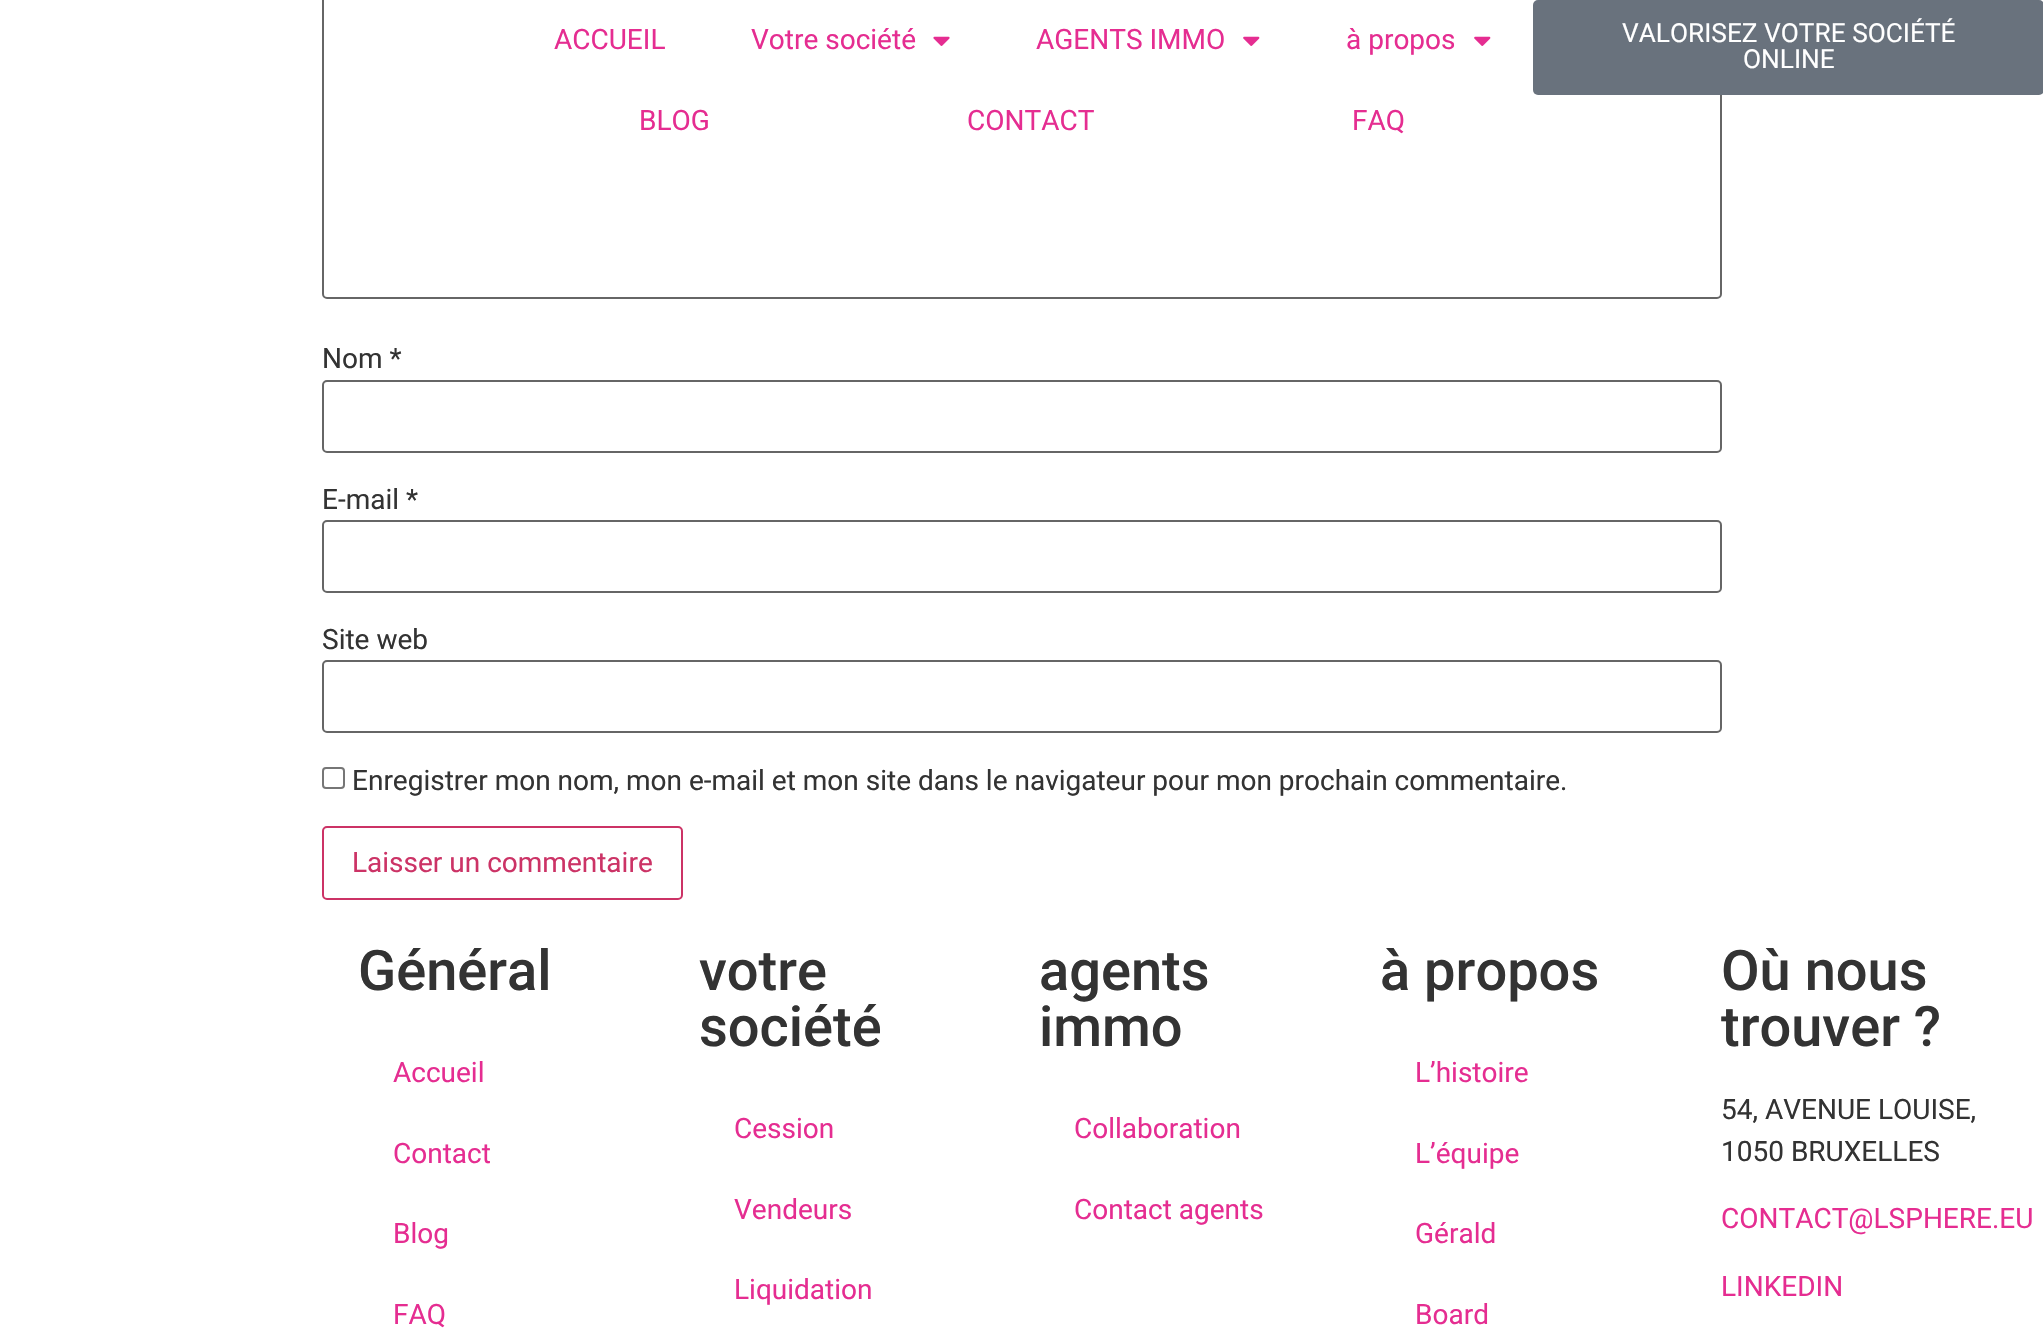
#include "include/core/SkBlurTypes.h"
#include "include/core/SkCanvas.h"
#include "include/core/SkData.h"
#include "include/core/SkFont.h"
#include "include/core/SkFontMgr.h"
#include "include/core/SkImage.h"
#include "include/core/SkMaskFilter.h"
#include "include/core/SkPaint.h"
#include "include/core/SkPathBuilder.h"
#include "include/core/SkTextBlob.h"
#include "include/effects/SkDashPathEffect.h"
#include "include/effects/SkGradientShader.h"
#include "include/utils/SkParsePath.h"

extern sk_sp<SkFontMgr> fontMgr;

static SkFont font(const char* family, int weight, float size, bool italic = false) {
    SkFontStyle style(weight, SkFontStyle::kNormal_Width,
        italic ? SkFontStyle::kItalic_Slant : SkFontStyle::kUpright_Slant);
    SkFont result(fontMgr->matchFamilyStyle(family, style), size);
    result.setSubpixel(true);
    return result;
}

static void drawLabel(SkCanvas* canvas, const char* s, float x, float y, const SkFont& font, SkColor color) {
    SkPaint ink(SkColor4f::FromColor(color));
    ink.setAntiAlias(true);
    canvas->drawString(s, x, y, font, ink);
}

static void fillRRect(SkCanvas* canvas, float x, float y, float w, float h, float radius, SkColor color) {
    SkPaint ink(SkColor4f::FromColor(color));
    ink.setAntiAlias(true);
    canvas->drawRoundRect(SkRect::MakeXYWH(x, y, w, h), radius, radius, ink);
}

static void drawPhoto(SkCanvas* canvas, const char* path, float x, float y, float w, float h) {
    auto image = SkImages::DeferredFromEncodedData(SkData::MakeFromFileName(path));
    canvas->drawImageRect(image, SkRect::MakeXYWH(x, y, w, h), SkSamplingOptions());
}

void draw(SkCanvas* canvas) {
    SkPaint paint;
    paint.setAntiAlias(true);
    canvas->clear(0xFFFFFFFF);
    paint.setStroke(true);
    paint.setStrokeWidth(2);
    paint.setColor(0xFF666666);
    canvas->drawRoundRect(SkRect::MakeXYWH(323, -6, 1398, 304), 4, 4, paint);
    SkFont font1 = font("Roboto", 400, 28);
    drawLabel(canvas, "ACCUEIL", 554, 49, font1, 0xFFE52D91);
    drawLabel(canvas, "Votre société", 751, 49, font1, 0xFFE52D91);
    drawPhoto(canvas, "assets/img1.png", 933, 36, 17, 10);
    drawLabel(canvas, "AGENTS IMMO", 1036, 49, font1, 0xFFE52D91);
    drawPhoto(canvas, "assets/img2.png", 1243, 36, 17, 10);
    drawLabel(canvas, "à propos", 1346, 49, font1, 0xFFE52D91);
    drawPhoto(canvas, "assets/img2.png", 1474, 36, 17, 10);
    drawLabel(canvas, "BLOG", 639, 130, font1, 0xFFE52D91);
    drawLabel(canvas, "CONTACT", 967, 130, font1, 0xFFE52D91);
    drawLabel(canvas, "FAQ", 1352, 130, font1, 0xFFE52D91);
    fillRRect(canvas, 1533, 0, 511, 95, 5, 0xFF69727D);
    SkFont font2 = font("Roboto", 400, 26.25f);
    drawLabel(canvas, "VALORISEZ VOTRE SOCIÉTÉ", 1622, 42, font2, 0xFFFFFFFF);
    drawLabel(canvas, "ONLINE", 1743, 68, font2, 0xFFFFFFFF);
    drawLabel(canvas, "Nom *", 322, 368, font1, 0xFF333333);
    canvas->drawRoundRect(SkRect::MakeXYWH(323, 381, 1398, 71), 4, 4, paint);
    drawLabel(canvas, "E-mail *", 322, 509, font1, 0xFF333333);
    canvas->drawRoundRect(SkRect::MakeXYWH(323, 521, 1398, 71), 4, 4, paint);
    drawLabel(canvas, "Site web", 322, 649, font1, 0xFF333333);
    canvas->drawRoundRect(SkRect::MakeXYWH(323, 661, 1398, 71), 4, 4, paint);
    paint.setColor(0xFF767676);
    canvas->drawRoundRect(SkRect::MakeXYWH(323, 768, 21, 20), 3, 3, paint);
    drawLabel(canvas, "Enregistrer mon nom, mon e-mail et mon site dans le navigateur pour mon prochain commentaire.", 352, 790, font1, 0xFF333333);
    paint.setColor(0xFFCC3366);
    canvas->drawRoundRect(SkRect::MakeXYWH(323, 827, 359, 72), 4, 4, paint);
    drawLabel(canvas, "Laisser un commentaire", 352, 872, font1, 0xFFCC3366);
    SkFont font3 = font("Roboto", 500, 56);
    drawLabel(canvas, "Général", 358, 990, font3, 0xFF333333);
    drawLabel(canvas, "Accueil", 393, 1082, font1, 0xFFE52D91);
    drawLabel(canvas, "Contact", 393, 1163, font1, 0xFFE52D91);
    drawLabel(canvas, "Blog", 393, 1243, font1, 0xFFE52D91);
    drawLabel(canvas, "FAQ", 393, 1324, font1, 0xFFE52D91);
    drawLabel(canvas, "votre", 699, 990, font3, 0xFF333333);
    drawLabel(canvas, "société", 699, 1046, font3, 0xFF333333);
    drawLabel(canvas, "Cession", 734, 1138, font1, 0xFFE52D91);
    drawLabel(canvas, "Vendeurs", 734, 1219, font1, 0xFFE52D91);
    drawLabel(canvas, "Liquidation", 734, 1299, font1, 0xFFE52D91);
    drawLabel(canvas, "agents", 1039, 990, font3, 0xFF333333);
    drawLabel(canvas, "immo", 1039, 1046, font3, 0xFF333333);
    drawLabel(canvas, "Collaboration", 1074, 1138, font1, 0xFFE52D91);
    drawLabel(canvas, "Contact agents", 1074, 1219, font1, 0xFFE52D91);
    drawLabel(canvas, "à propos", 1380, 990, font3, 0xFF333333);
    drawLabel(canvas, "L’histoire", 1415, 1082, font1, 0xFFE52D91);
    drawLabel(canvas, "L’équipe", 1415, 1163, font1, 0xFFE52D91);
    drawLabel(canvas, "Gérald", 1415, 1243, font1, 0xFFE52D91);
    drawLabel(canvas, "Board", 1415, 1324, font1, 0xFFE52D91);
    drawLabel(canvas, "Où nous", 1721, 990, font3, 0xFF333333);
    drawLabel(canvas, "trouver ?", 1721, 1046, font3, 0xFF333333);
    drawLabel(canvas, "54, AVENUE LOUISE,", 1721, 1119, font1, 0xFF333333);
    drawLabel(canvas, "1050 BRUXELLES", 1721, 1161, font1, 0xFF333333);
    drawLabel(canvas, "CONTACT@LSPHERE.EU", 1721, 1228, font1, 0xFFE52D91);
    drawLabel(canvas, "LINKEDIN", 1721, 1296, font1, 0xFFE52D91);
}
